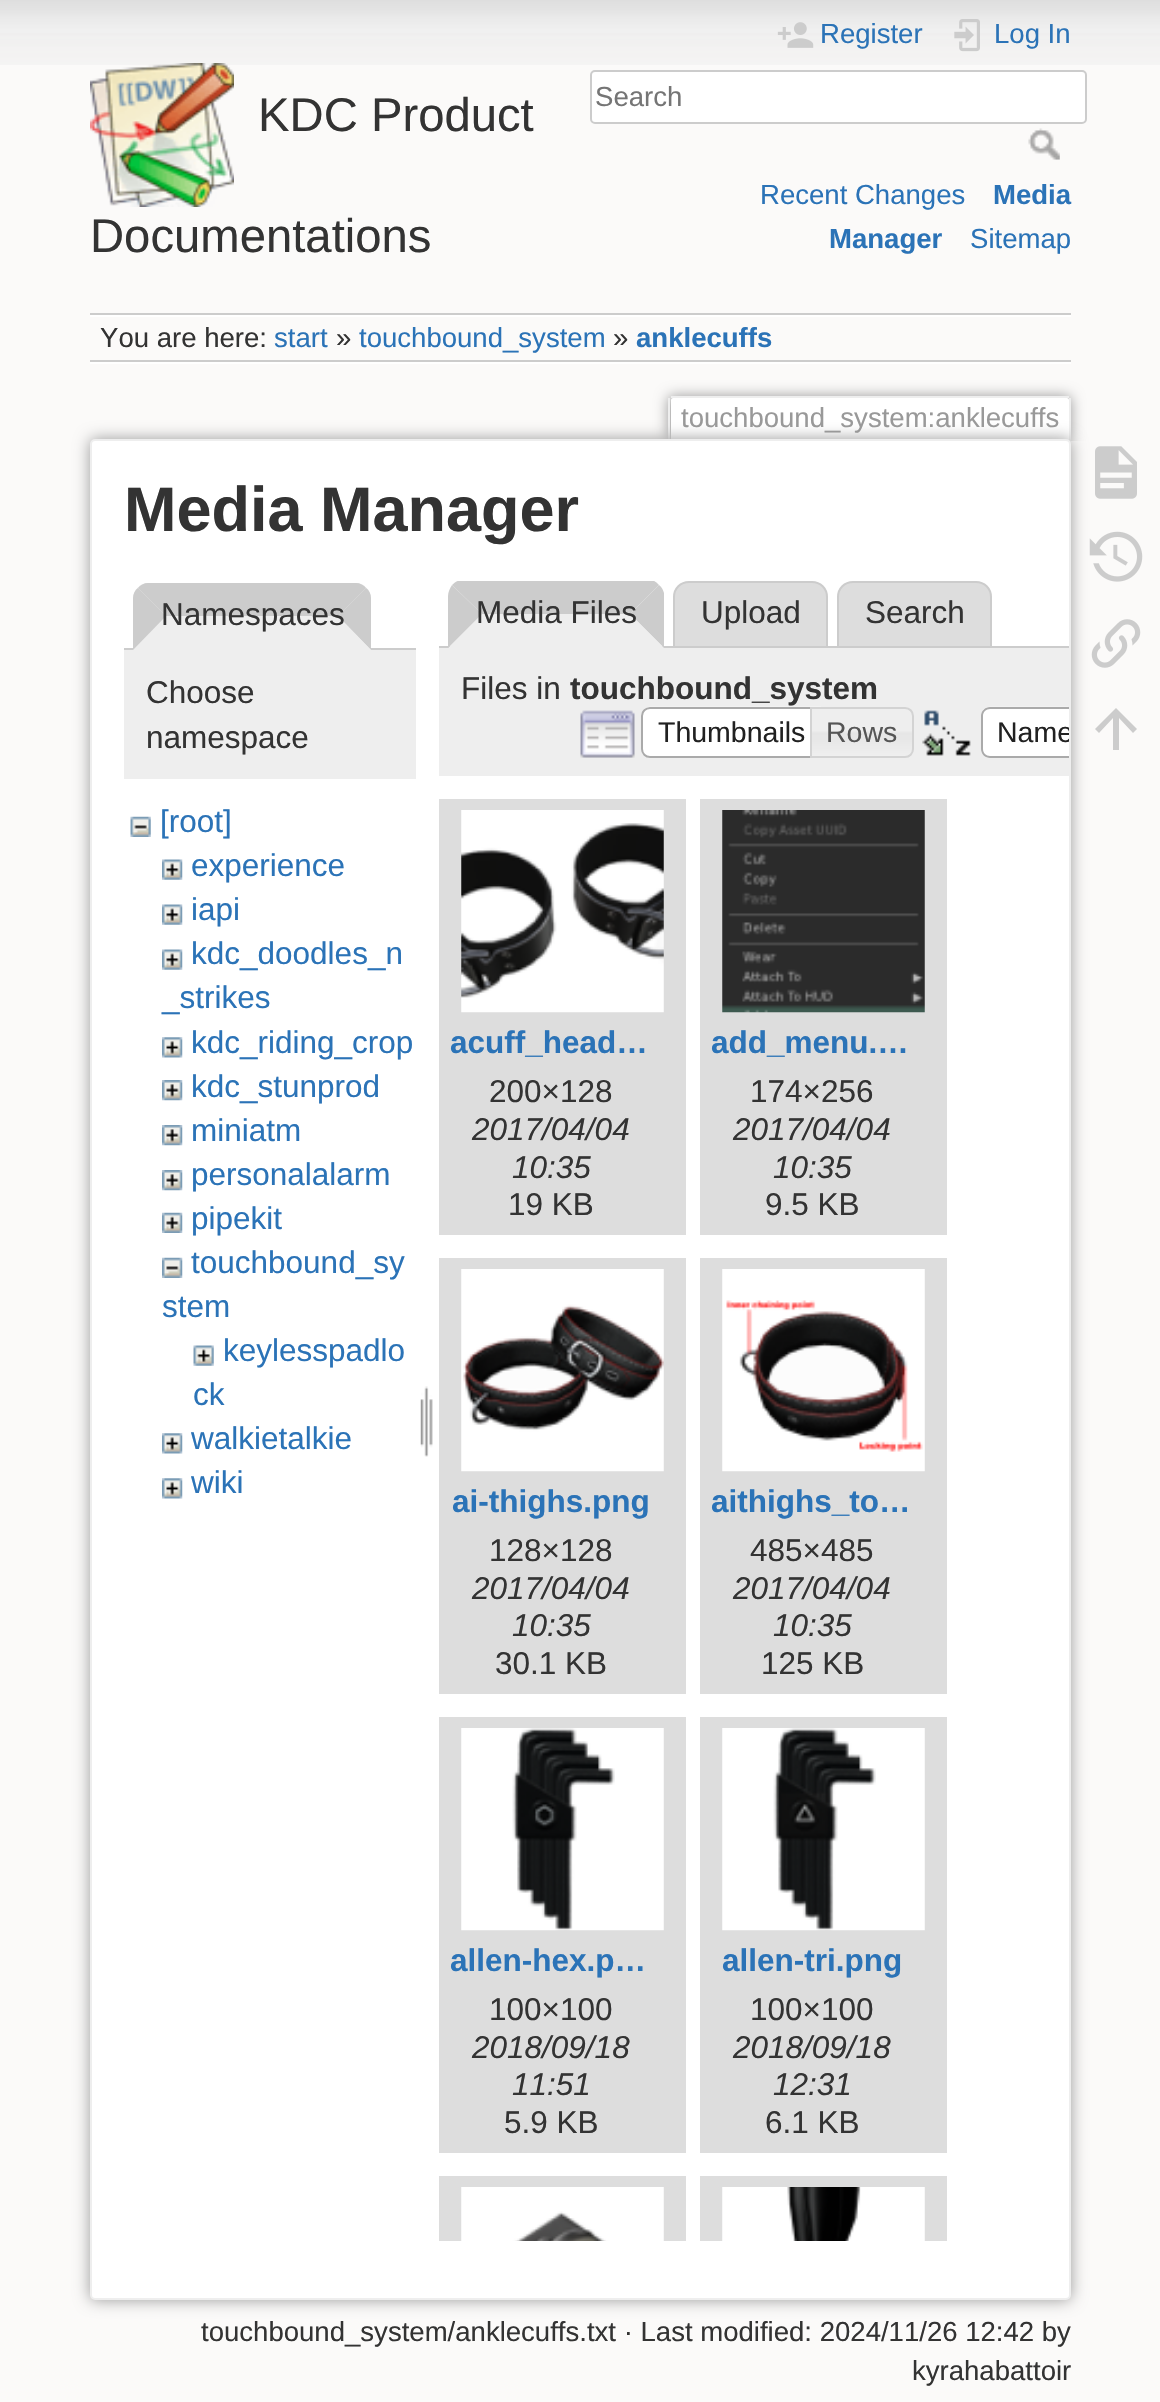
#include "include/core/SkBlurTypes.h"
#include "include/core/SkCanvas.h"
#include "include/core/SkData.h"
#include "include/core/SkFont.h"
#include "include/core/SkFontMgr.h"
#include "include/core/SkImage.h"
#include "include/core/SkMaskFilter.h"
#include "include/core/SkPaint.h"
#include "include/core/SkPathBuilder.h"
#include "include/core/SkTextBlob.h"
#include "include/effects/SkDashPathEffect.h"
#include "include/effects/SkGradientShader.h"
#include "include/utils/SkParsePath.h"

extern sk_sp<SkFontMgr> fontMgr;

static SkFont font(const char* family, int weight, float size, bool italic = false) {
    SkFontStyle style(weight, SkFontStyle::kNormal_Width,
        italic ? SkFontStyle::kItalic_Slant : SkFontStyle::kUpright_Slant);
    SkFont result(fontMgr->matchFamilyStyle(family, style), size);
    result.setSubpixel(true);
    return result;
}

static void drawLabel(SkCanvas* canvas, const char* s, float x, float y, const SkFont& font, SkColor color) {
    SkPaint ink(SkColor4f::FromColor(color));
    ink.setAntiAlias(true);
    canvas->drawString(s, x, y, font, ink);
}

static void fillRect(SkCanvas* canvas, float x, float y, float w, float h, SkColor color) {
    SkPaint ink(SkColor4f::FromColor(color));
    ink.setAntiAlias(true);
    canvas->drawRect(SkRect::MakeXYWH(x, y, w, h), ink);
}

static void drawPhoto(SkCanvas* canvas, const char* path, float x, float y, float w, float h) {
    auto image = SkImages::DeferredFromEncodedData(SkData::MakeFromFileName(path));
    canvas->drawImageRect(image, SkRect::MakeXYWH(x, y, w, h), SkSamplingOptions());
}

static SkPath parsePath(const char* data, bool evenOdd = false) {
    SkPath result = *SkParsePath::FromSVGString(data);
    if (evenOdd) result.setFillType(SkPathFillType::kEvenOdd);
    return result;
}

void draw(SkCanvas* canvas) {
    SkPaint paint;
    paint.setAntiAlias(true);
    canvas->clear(0xFFFBFAF9);
    drawPhoto(canvas, "assets/img1.png", 0, 0, 1160, 65);
    drawPhoto(canvas, "assets/img2.png", 90, 63, 144, 144);
    SkFont font1 = font("Liberation Sans", 400, 47.25f);
    drawLabel(canvas, "KDC Product", 258, 131, font1, 0xFF333333);
    drawLabel(canvas, "Documentations", 90, 252, font1, 0xFF333333);
    drawPhoto(canvas, "assets/img3.png", 777, 22, 37, 26);
    SkFont font2 = font("Liberation Sans", 400, 27.55f);
    drawLabel(canvas, "Register", 820, 43, font2, 0xFF2B73B7);
    drawPhoto(canvas, "assets/img4.png", 954, 19, 26, 33);
    drawLabel(canvas, "Log In", 994, 43, font2, 0xFF2B73B7);
    paint.setColor(0xFFFFFFFF);
    canvas->drawRoundRect(SkRect::MakeXYWH(591, 71, 495, 52), 4, 4, paint);
    paint.setStroke(true);
    paint.setStrokeWidth(2);
    paint.setColor(0xFFCCCCCC);
    canvas->drawRoundRect(SkRect::MakeXYWH(591, 71, 495, 52), 4, 4, paint);
    drawLabel(canvas, "Search", 595, 106, font2, 0xFF757575);
    drawPhoto(canvas, "assets/img5.png", 1028, 128, 32, 32);
    drawLabel(canvas, "Recent Changes", 760, 204, font2, 0xFF2B73B7);
    SkFont font3 = font("Liberation Sans", 700, 27.55f);
    drawLabel(canvas, "Media", 993, 204, font3, 0xFF2B73B7);
    drawLabel(canvas, "Manager", 829, 248, font3, 0xFF2B73B7);
    drawLabel(canvas, "Sitemap", 970, 248, font2, 0xFF2B73B7);
    fillRect(canvas, 90, 313, 981, 2, 0xFFCCCCCC);
    fillRect(canvas, 90, 362, 981, 2, 0xFFFFFFFF);
    fillRect(canvas, 90, 315, 981, 2, 0xFFFFFFFF);
    fillRect(canvas, 90, 360, 981, 2, 0xFFCCCCCC);
    drawLabel(canvas, "You are here:", 100, 347, font2, 0xFF333333);
    drawLabel(canvas, "start", 274, 347, font2, 0xFF2B73B7);
    drawLabel(canvas, "»", 336, 347, font2, 0xFF333333);
    drawLabel(canvas, "touchbound_system", 359, 347, font2, 0xFF2B73B7);
    drawLabel(canvas, "»", 613, 347, font2, 0xFF333333);
    drawLabel(canvas, "anklecuffs", 636, 347, font3, 0xFF2B73B7);
    canvas->save();
    canvas->clipRect(SkRect::MakeXYWH(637, 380, 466, 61));
    paint.setStroke(false);
    paint.setColor(0xFF999999);
    paint.setMaskFilter(SkMaskFilter::MakeBlur(kNormal_SkBlurStyle, 7));
    canvas->drawRoundRect(SkRect::MakeXYWH(668, 396, 403, 45), 5, 5, paint);
    paint.setMaskFilter(nullptr);
    canvas->restore();
    paint.setColor(0xFFFFFFFF);
    canvas->drawPath(parsePath("M673 398H1067C1068 398 1069 399 1069 400V441H671V400C671 399 672 398 673 398Z"), paint);
    fillRect(canvas, 671, 396, 398, 2, 0xFFEEEEEE);
    fillRect(canvas, 1069, 398, 2, 43, 0xFFEEEEEE);
    fillRect(canvas, 668, 398, 2, 43, 0xFFEEEEEE);
    drawLabel(canvas, "touchbound_system:anklecuffs", 681, 427, font2, 0xFF999999);
    paint.setColor(0xFF999999);
    paint.setMaskFilter(SkMaskFilter::MakeBlur(kNormal_SkBlurStyle, 8));
    canvas->drawRoundRect(SkRect::MakeXYWH(90, 439, 981, 1861), 5, 5, paint);
    paint.setMaskFilter(nullptr);
    paint.setColor(0xFFFFFFFF);
    canvas->drawRoundRect(SkRect::MakeXYWH(91, 440, 979, 1859), 4, 4, paint);
    paint.setStroke(true);
    paint.setColor(0xFFEEEEEE);
    canvas->drawRoundRect(SkRect::MakeXYWH(91, 440, 979, 1859), 4, 4, paint);
    SkFont font4 = font("Liberation Sans", 700, 63);
    drawLabel(canvas, "Media Manager", 124, 531, font4, 0xFF333333);
    fillRect(canvas, 124, 648, 292, 2, 0xFFCCCCCC);
    paint.setStroke(false);
    canvas->drawPath(parsePath("M149 583H355C364 583 371 590 371 599V650H133V599C133 590 140 583 149 583Z"), paint);
    paint.setColor(0xFFCCCCCC);
    canvas->drawPath(parsePath("M148 583C144 583 140 585 138 588L166 616H338L366 588C364 585 360 583 356 583Z"), paint);
    canvas->drawPath(parsePath("M371 650V598C371 594 369 590 366 588L338 616Z"), paint);
    paint.setColor(0xFFEEEEEE);
    canvas->drawPath(parsePath("M371 650L338 616H166L133 650Z"), paint);
    paint.setColor(0xFFCCCCCC);
    canvas->drawPath(parsePath("M138 588C135 590 133 594 133 598V650L166 616Z"), paint);
    SkFont font5 = font("Liberation Sans", 400, 31.5f);
    drawLabel(canvas, "Namespaces", 161, 625, font5, 0xFF333333);
    fillRect(canvas, 124, 650, 292, 129, 0xFFEEEEEE);
    drawLabel(canvas, "Choose", 146, 703, font5, 0xFF333333);
    drawLabel(canvas, "namespace", 146, 748, font5, 0xFF333333);
    drawPhoto(canvas, "assets/img6.png", 130, 816, 21, 21);
    drawLabel(canvas, "[root]", 160, 832, font5, 0xFF2B73B7);
    drawPhoto(canvas, "assets/img7.png", 162, 859, 21, 21);
    drawLabel(canvas, "experience", 191, 876, font5, 0xFF2B73B7);
    drawPhoto(canvas, "assets/img7.png", 162, 904, 21, 21);
    drawLabel(canvas, "iapi", 191, 920, font5, 0xFF2B73B7);
    drawPhoto(canvas, "assets/img7.png", 162, 949, 21, 21);
    drawLabel(canvas, "kdc_doodles_n", 191, 964, font5, 0xFF2B73B7);
    drawLabel(canvas, "_strikes", 162, 1008, font5, 0xFF2B73B7);
    drawPhoto(canvas, "assets/img8.png", 162, 1037, 21, 21);
    drawLabel(canvas, "kdc_riding_crop", 191, 1053, font5, 0xFF2B73B7);
    drawPhoto(canvas, "assets/img9.png", 162, 1080, 21, 21);
    drawLabel(canvas, "kdc_stunprod", 191, 1097, font5, 0xFF2B73B7);
    drawPhoto(canvas, "assets/img9.png", 162, 1125, 21, 21);
    drawLabel(canvas, "miniatm", 191, 1141, font5, 0xFF2B73B7);
    drawPhoto(canvas, "assets/img9.png", 162, 1170, 21, 21);
    drawLabel(canvas, "personalalarm", 191, 1185, font5, 0xFF2B73B7);
    drawPhoto(canvas, "assets/img10.png", 162, 1212, 21, 21);
    drawLabel(canvas, "pipekit", 191, 1229, font5, 0xFF2B73B7);
    drawPhoto(canvas, "assets/img11.png", 162, 1257, 21, 21);
    drawLabel(canvas, "touchbound_sy", 191, 1273, font5, 0xFF2B73B7);
    drawLabel(canvas, "stem", 162, 1317, font5, 0xFF2B73B7);
    drawPhoto(canvas, "assets/img12.png", 193, 1345, 21, 21);
    drawLabel(canvas, "keylesspadlo", 223, 1361, font5, 0xFF2B73B7);
    drawLabel(canvas, "ck", 193, 1405, font5, 0xFF2B73B7);
    drawPhoto(canvas, "assets/img8.png", 162, 1433, 21, 21);
    drawLabel(canvas, "walkietalkie", 191, 1449, font5, 0xFF2B73B7);
    drawPhoto(canvas, "assets/img8.png", 162, 1478, 21, 21);
    drawLabel(canvas, "wiki", 191, 1493, font5, 0xFF2B73B7);
    drawPhoto(canvas, "assets/img13.png", 420, 1386, 13, 71);
    canvas->save();
    canvas->clipRect(SkRect::MakeXYWH(439, 581, 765, 67));
    canvas->drawPath(parsePath("M652 580H460C457 581 454 583 452 585L482 614H630L659 585C657 583 655 581 652 580Z"), paint);
    canvas->restore();
    paint.setColor(0xFFDDDDDD);
    canvas->drawPath(parsePath("M689 582H812C820.5 582 827 588.5 827 597V647H674V597C674 588.5 680.5 582 689 582Z"), paint);
    paint.setStroke(true);
    paint.setColor(0xFFCCCCCC);
    canvas->drawPath(parsePath("M689 582H812C820.5 582 827 588.5 827 597V647H674V597C674 588.5 680.5 582 689 582Z"), paint);
    paint.setStroke(false);
    paint.setColor(0xFFDDDDDD);
    canvas->drawPath(parsePath("M853 582H976C984.5 582 991 588.5 991 597V647H838V597C838 588.5 844.5 582 853 582Z"), paint);
    paint.setStroke(true);
    paint.setColor(0xFFCCCCCC);
    canvas->drawPath(parsePath("M853 582H976C984.5 582 991 588.5 991 597V647H838V597C838 588.5 844.5 582 853 582Z"), paint);
    fillRect(canvas, 439, 646, 630, 2, 0xFFCCCCCC);
    paint.setStroke(false);
    canvas->drawPath(parsePath("M659 585L630 614L664 648V593C663 590 662 587 659 585Z"), paint);
    paint.setColor(0xFFEEEEEE);
    canvas->drawPath(parsePath("M664 648L630 614H482L448 648Z"), paint);
    paint.setColor(0xFFCCCCCC);
    canvas->drawPath(parsePath("M448 648L482 614L452 585C450 588 448 592 448 596Z"), paint);
    drawLabel(canvas, "Media Files", 476, 623, font5, 0xFF333333);
    drawLabel(canvas, "Upload", 701, 623, font5, 0xFF333333);
    drawLabel(canvas, "Search", 865, 623, font5, 0xFF333333);
    fillRect(canvas, 439, 648, 630, 128, 0xFFEEEEEE);
    drawLabel(canvas, "Files in", 461, 699, font5, 0xFF333333);
    SkFont font6 = font("Liberation Sans", 700, 31.5f);
    drawLabel(canvas, "touchbound_system", 570, 699, font6, 0xFF333333);
    drawPhoto(canvas, "assets/img14.png", 580, 710, 55, 48);
    drawPhoto(canvas, "assets/img15.png", 643, 706, 178, 52);
    paint.setStroke(true);
    paint.setColor(0xFFAAAAAA);
    canvas->drawPath(parsePath("M650 708H820V757H650C645.5 757 642 753.5 642 749V716C642 711.5 645.5 708 650 708Z"), paint);
    SkFont font7 = font("Liberation Sans", 400, 28.5f);
    drawLabel(canvas, "Thumbnails", 658, 742, font7, 0xFF212121);
    drawPhoto(canvas, "assets/img16.png", 812, 707, 101, 51);
    paint.setColor(0xFFD3D3D3);
    canvas->drawPath(parsePath("M811 708H905C909.5 708 913 711.5 913 716V749C913 753.5 909.5 757 905 757H811Z"), paint);
    drawLabel(canvas, "Rows", 826, 742, font7, 0xFF555555);
    drawPhoto(canvas, "assets/img17.png", 922, 710, 49, 46);
    paint.setStroke(false);
    paint.setColor(0xFFFFFFFF);
    canvas->drawPath(parsePath("M990 707H1069V758H990C985 758 981 754 981 749V716C981 711 985 707 990 707Z"), paint);
    drawPhoto(canvas, "assets/img18.png", 981, 706, 87, 52);
    paint.setColor(0xFFAAAAAA);
    canvas->drawPath(parsePath("M990 707C985 707 981 711 981 716V749C981 754 985 758 990 758H1069V756H990C986 756 983 753 983 749V716C983 712 986 709 990 709H1069V707Z"), paint);
    canvas->save();
    canvas->clipPath(parsePath("M94 441H1067C1068 441 1069 442 1069 443V2295C1069 2296 1068 2297 1067 2297H94C93 2297 92 2296 92 2295V443C92 442 93 441 94 441Z"), true);
    drawLabel(canvas, "Name", 997, 742, font7, 0xFF212121);
    canvas->restore();
    fillRect(canvas, 439, 799, 247, 436, 0xFFDDDDDD);
    drawPhoto(canvas, "assets/img19.png", 461, 810, 203, 203);
    drawLabel(canvas, "acuff_head…", 450, 1053, font6, 0xFF2B73B7);
    drawLabel(canvas, "200×128", 489, 1102, font5, 0xFF333333);
    SkFont font8 = font("Liberation Sans", 400, 31.5f, true);
    drawLabel(canvas, "2017/04/04", 472, 1140, font8, 0xFF333333);
    drawLabel(canvas, "10:35", 512, 1178, font8, 0xFF333333);
    drawLabel(canvas, "19 KB", 508, 1215, font5, 0xFF333333);
    fillRect(canvas, 700, 799, 247, 436, 0xFFDDDDDD);
    drawPhoto(canvas, "assets/img20.png", 722, 810, 203, 203);
    drawLabel(canvas, "add_menu.…", 711, 1053, font6, 0xFF2B73B7);
    drawLabel(canvas, "174×256", 750, 1102, font5, 0xFF333333);
    drawLabel(canvas, "2017/04/04", 733, 1140, font8, 0xFF333333);
    drawLabel(canvas, "10:35", 773, 1178, font8, 0xFF333333);
    drawLabel(canvas, "9.5 KB", 765, 1215, font5, 0xFF333333);
    fillRect(canvas, 439, 1258, 247, 436, 0xFFDDDDDD);
    drawPhoto(canvas, "assets/img21.png", 461, 1269, 203, 203);
    drawLabel(canvas, "ai-thighs.png", 452, 1512, font6, 0xFF2B73B7);
    drawLabel(canvas, "128×128", 489, 1561, font5, 0xFF333333);
    drawLabel(canvas, "2017/04/04", 472, 1599, font8, 0xFF333333);
    drawLabel(canvas, "10:35", 512, 1636, font8, 0xFF333333);
    drawLabel(canvas, "30.1 KB", 495, 1674, font5, 0xFF333333);
    fillRect(canvas, 700, 1258, 247, 436, 0xFFDDDDDD);
    drawPhoto(canvas, "assets/img22.png", 722, 1269, 203, 203);
    drawLabel(canvas, "aithighs_to…", 711, 1512, font6, 0xFF2B73B7);
    drawLabel(canvas, "485×485", 750, 1561, font5, 0xFF333333);
    drawLabel(canvas, "2017/04/04", 733, 1599, font8, 0xFF333333);
    drawLabel(canvas, "10:35", 773, 1636, font8, 0xFF333333);
    drawLabel(canvas, "125 KB", 761, 1674, font5, 0xFF333333);
    fillRect(canvas, 439, 1717, 247, 436, 0xFFDDDDDD);
    drawPhoto(canvas, "assets/img23.png", 461, 1728, 203, 203);
    drawLabel(canvas, "allen-hex.p…", 450, 1971, font6, 0xFF2B73B7);
    drawLabel(canvas, "100×100", 489, 2020, font5, 0xFF333333);
    drawLabel(canvas, "2018/09/18", 472, 2058, font8, 0xFF333333);
    drawLabel(canvas, "11:51", 512, 2095, font8, 0xFF333333);
    drawLabel(canvas, "5.9 KB", 504, 2133, font5, 0xFF333333);
    fillRect(canvas, 700, 1717, 247, 436, 0xFFDDDDDD);
    drawPhoto(canvas, "assets/img24.png", 722, 1728, 203, 203);
    drawLabel(canvas, "allen-tri.png", 722, 1971, font6, 0xFF2B73B7);
    drawLabel(canvas, "100×100", 750, 2020, font5, 0xFF333333);
    drawLabel(canvas, "2018/09/18", 733, 2058, font8, 0xFF333333);
    drawLabel(canvas, "12:31", 773, 2095, font8, 0xFF333333);
    drawLabel(canvas, "6.1 KB", 765, 2133, font5, 0xFF333333);
    fillRect(canvas, 439, 2176, 247, 65, 0xFFDDDDDD);
    drawPhoto(canvas, "assets/img25.png", 461, 2187, 203, 54);
    fillRect(canvas, 700, 2176, 247, 65, 0xFFDDDDDD);
    drawPhoto(canvas, "assets/img26.png", 722, 2187, 203, 54);
    drawLabel(canvas, "touchbound_system/anklecuffs.txt · Last modified: 2024/11/26 12:42 by", 201, 2341, font2, 0xFF333333);
    drawLabel(canvas, "kyrahabattoir", 912, 2380, font2, 0xFF333333);
    drawPhoto(canvas, "assets/img27.png", 1095, 446, 42, 53);
    drawPhoto(canvas, "assets/img28.png", 1089, 531, 54, 51);
    drawPhoto(canvas, "assets/img29.png", 1091, 619, 50, 49);
    paint.setColor(0xFFCCCCCC);
    canvas->drawPath(parsePath("M1119 750H1113V718L1099 733L1095 729L1116 708L1137 729L1133 733L1119 718Z"), paint);
}
